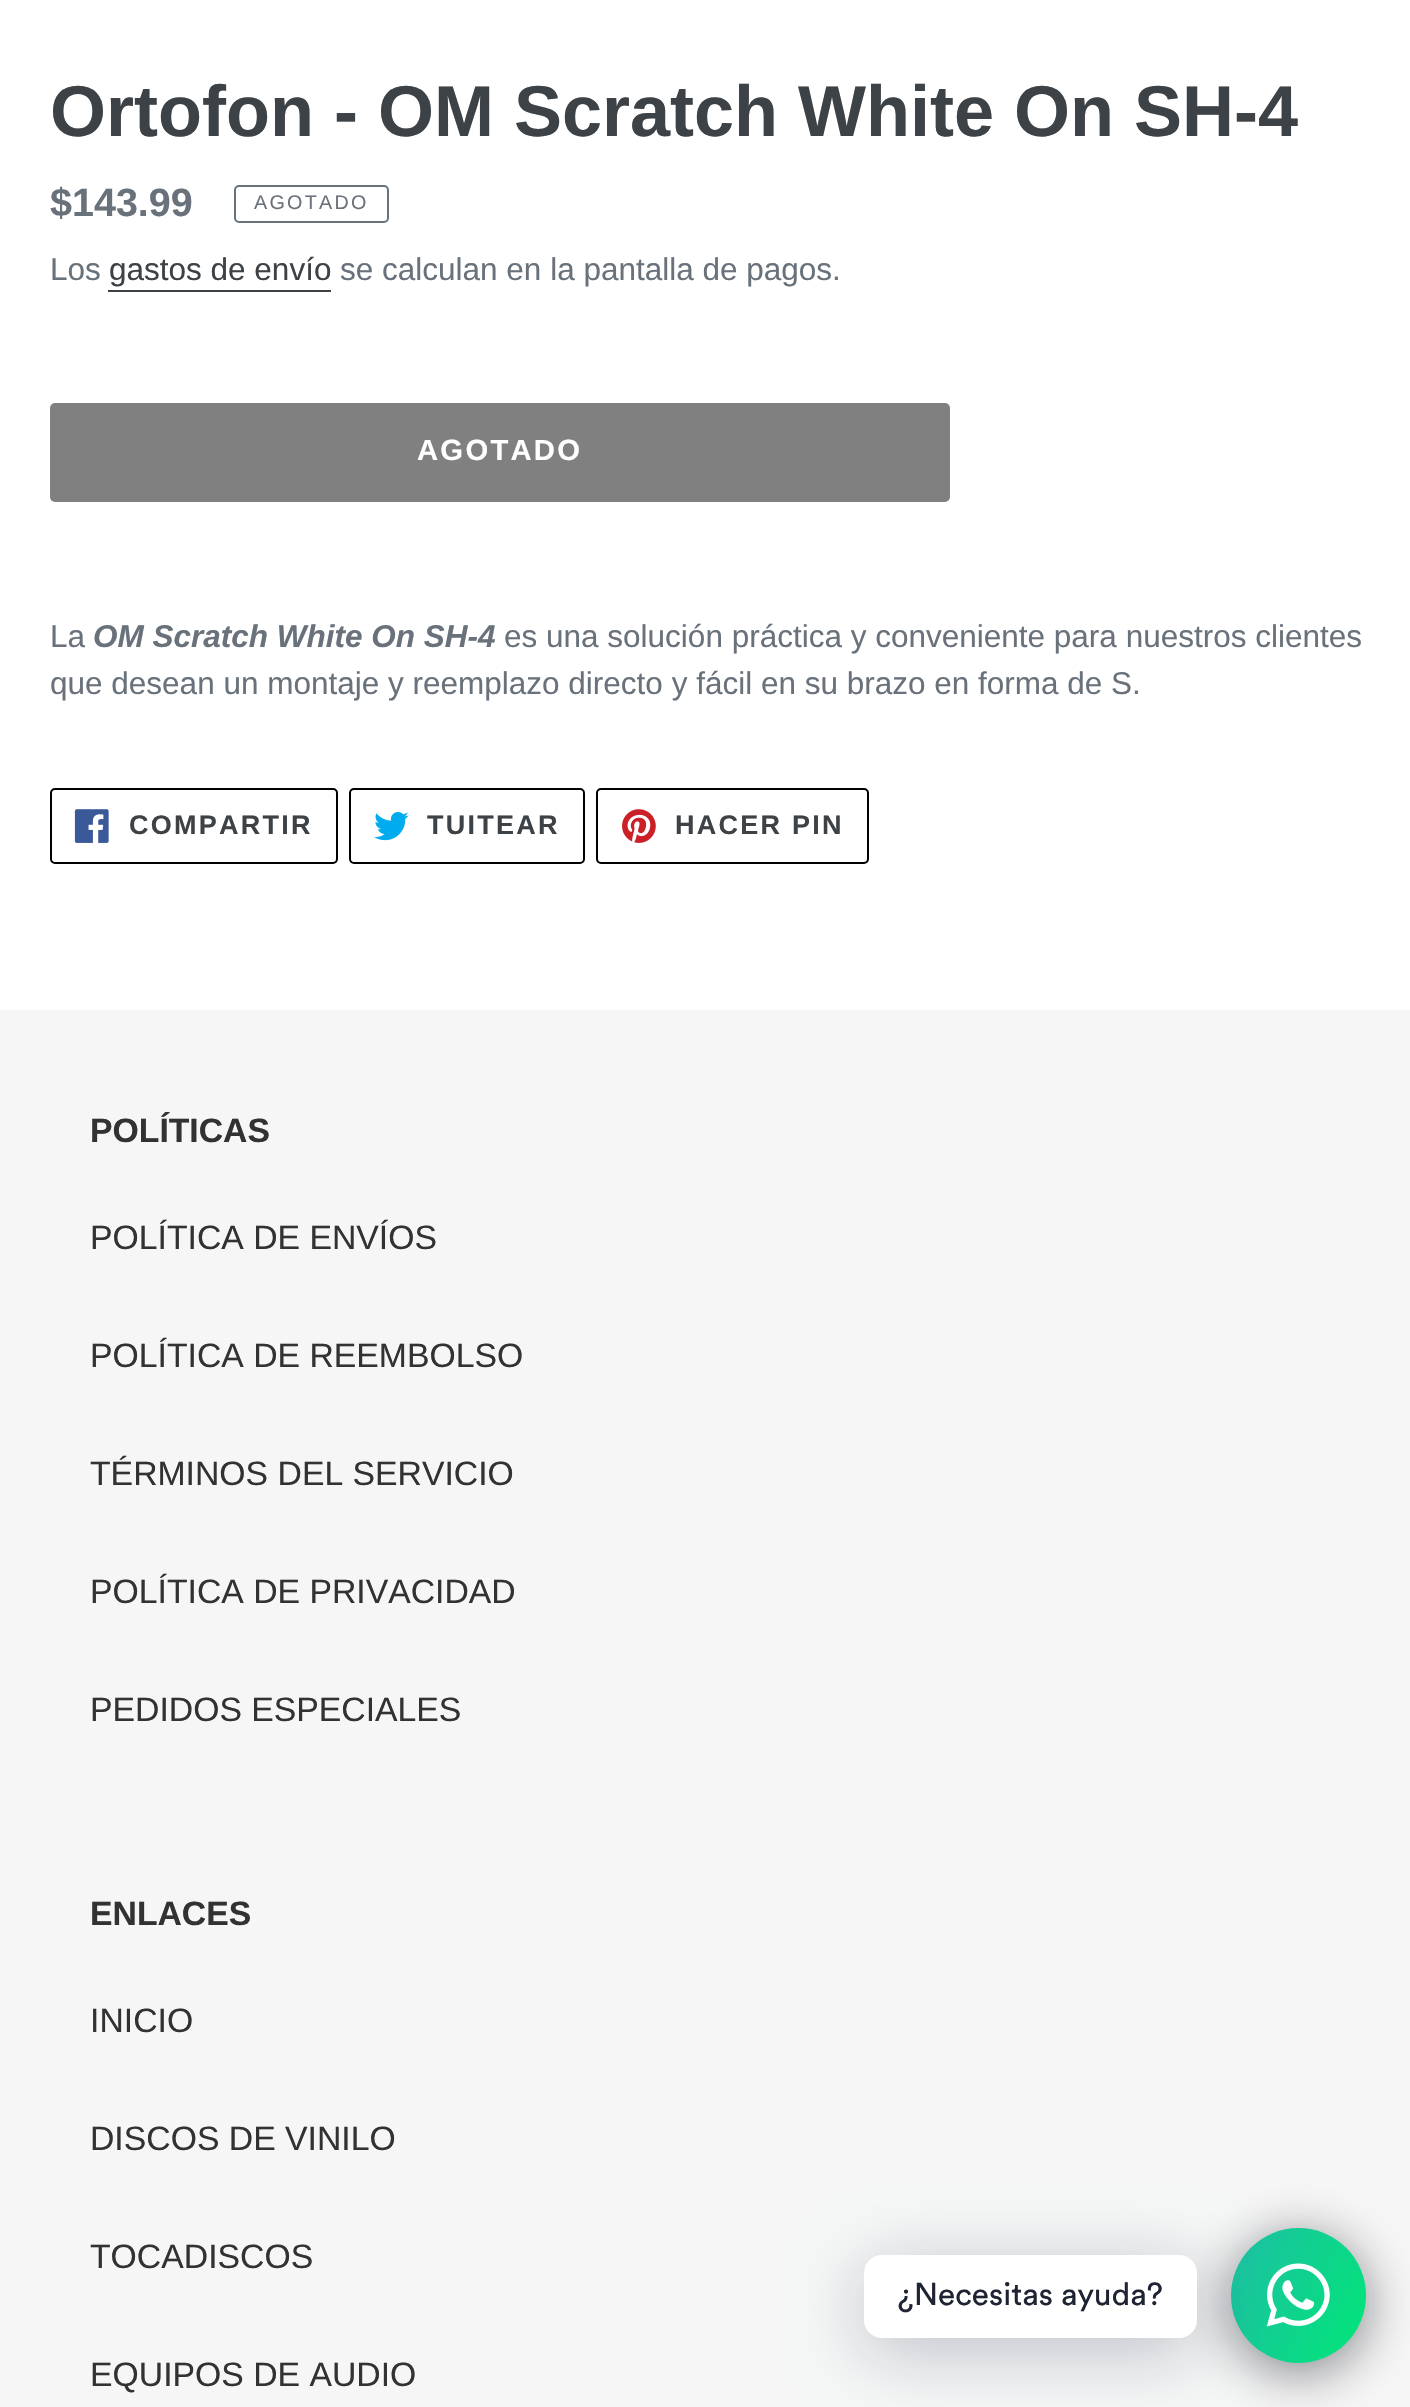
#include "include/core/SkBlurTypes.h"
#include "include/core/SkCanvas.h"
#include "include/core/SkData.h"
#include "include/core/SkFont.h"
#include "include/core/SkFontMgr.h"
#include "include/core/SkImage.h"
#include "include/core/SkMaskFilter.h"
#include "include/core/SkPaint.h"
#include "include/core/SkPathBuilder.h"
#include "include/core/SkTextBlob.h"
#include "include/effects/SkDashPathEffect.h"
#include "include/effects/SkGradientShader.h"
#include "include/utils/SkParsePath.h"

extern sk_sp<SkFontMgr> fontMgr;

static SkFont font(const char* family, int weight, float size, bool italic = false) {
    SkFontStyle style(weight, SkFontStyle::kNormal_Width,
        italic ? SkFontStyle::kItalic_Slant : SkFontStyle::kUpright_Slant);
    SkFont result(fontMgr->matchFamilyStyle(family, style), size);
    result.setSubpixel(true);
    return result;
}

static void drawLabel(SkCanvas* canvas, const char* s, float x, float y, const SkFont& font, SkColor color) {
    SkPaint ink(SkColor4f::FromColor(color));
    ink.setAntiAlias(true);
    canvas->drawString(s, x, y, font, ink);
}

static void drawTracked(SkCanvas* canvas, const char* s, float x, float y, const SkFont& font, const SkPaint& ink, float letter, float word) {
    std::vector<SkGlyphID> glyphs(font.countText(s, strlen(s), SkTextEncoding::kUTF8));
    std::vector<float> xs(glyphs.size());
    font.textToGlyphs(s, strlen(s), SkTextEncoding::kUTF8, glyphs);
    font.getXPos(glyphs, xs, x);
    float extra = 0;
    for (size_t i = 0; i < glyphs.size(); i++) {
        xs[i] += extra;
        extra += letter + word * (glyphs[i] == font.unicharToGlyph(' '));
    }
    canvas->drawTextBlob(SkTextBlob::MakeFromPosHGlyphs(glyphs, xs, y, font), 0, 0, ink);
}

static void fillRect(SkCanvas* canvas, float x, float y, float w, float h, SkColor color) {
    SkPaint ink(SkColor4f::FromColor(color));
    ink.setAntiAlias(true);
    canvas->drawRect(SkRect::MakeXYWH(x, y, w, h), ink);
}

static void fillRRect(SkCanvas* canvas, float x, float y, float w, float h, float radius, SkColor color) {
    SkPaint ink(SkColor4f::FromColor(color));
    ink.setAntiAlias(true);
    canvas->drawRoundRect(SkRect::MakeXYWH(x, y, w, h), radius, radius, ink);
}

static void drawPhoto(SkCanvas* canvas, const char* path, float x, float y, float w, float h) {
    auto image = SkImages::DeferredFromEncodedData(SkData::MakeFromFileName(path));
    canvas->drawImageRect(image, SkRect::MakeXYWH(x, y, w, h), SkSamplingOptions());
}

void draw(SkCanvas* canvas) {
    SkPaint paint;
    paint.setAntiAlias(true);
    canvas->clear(0xFFFFFFFF);
    SkFont font1 = font("Liberation Sans", 700, 72);
    drawLabel(canvas, "Ortofon - OM Scratch White On SH-4", 50, 136, font1, 0xFF3D4246);
    SkFont font2 = font("Liberation Sans", 700, 39.5f);
    drawLabel(canvas, "$143.99", 50, 216, font2, 0xFF69727B);
    paint.setStroke(true);
    paint.setStrokeWidth(2);
    paint.setColor(0xFF69727B);
    canvas->drawRoundRect(SkRect::MakeXYWH(235, 186, 153, 36), 4, 4, paint);
    SkFont font3 = font("Liberation Sans", 400, 19.75f);
    paint.setStroke(false);
    drawTracked(canvas, "AGOTADO", 254, 209, font3, paint, 2.25f, 0);
    SkFont font4 = font("Liberation Sans", 400, 31.5f);
    drawLabel(canvas, "Los", 50, 280, font4, 0xFF69727B);
    drawLabel(canvas, "gastos de envío", 109, 280, font4, 0xFF3D4246);
    fillRect(canvas, 108, 290, 223, 2, 0xFF3D4246);
    drawLabel(canvas, "se calculan en la pantalla de pagos.", 340, 280, font4, 0xFF69727B);
    fillRRect(canvas, 50, 403, 900, 99, 5, 0xFF808080);
    SkFont font5 = font("Liberation Sans", 700, 29.25f);
    paint.setColor(0xFFFFFFFF);
    drawTracked(canvas, "AGOTADO", 417, 460, font5, paint, 2.25f, 0);
    drawLabel(canvas, "La", 50, 647, font4, 0xFF69727B);
    SkFont font6 = font("Liberation Sans", 700, 31.5f, true);
    drawLabel(canvas, "OM Scratch White On SH-4", 93, 647, font6, 0xFF69727B);
    drawLabel(canvas, "es una solución práctica y conveniente para nuestros clientes", 504, 647, font4, 0xFF69727B);
    drawLabel(canvas, "que desean un montaje y reemplazo directo y fácil en su brazo en forma de S.", 50, 694, font4, 0xFF69727B);
    paint.setStroke(true);
    paint.setColor(0xFF000000);
    canvas->drawRoundRect(SkRect::MakeXYWH(51, 789, 286, 74), 4, 4, paint);
    drawPhoto(canvas, "assets/img1.png", 74, 809, 35, 34);
    SkFont font7 = font("Liberation Sans", 700, 27);
    paint.setStroke(false);
    paint.setColor(0xFF3D4246);
    drawTracked(canvas, "COMPARTIR", 129, 834, font7, paint, 2.25f, 0);
    paint.setStroke(true);
    paint.setColor(0xFF000000);
    canvas->drawRoundRect(SkRect::MakeXYWH(350, 789, 234, 74), 4, 4, paint);
    drawPhoto(canvas, "assets/img2.png", 374, 812, 35, 29);
    paint.setStroke(false);
    paint.setColor(0xFF3D4246);
    drawTracked(canvas, "TUITEAR", 427, 834, font7, paint, 2.25f, 0);
    paint.setStroke(true);
    paint.setColor(0xFF000000);
    canvas->drawRoundRect(SkRect::MakeXYWH(597, 789, 271, 74), 4, 4, paint);
    drawPhoto(canvas, "assets/img3.png", 622, 809, 34, 34);
    paint.setStroke(false);
    paint.setColor(0xFF3D4246);
    drawTracked(canvas, "HACER PIN", 675, 834, font7, paint, 2.25f, 0);
    fillRect(canvas, 0, 1010, 1410, 1397, 0xFFF6F6F6);
    SkFont font8 = font("Liberation Sans", 700, 33.75f);
    drawLabel(canvas, "POLÍTICAS", 90, 1142, font8, 0xFF333232);
    SkFont font9 = font("Liberation Sans", 400, 33.75f);
    drawLabel(canvas, "POLÍTICA DE ENVÍOS", 90, 1249, font9, 0xFF333232);
    drawLabel(canvas, "POLÍTICA DE REEMBOLSO", 90, 1367, font9, 0xFF333232);
    drawLabel(canvas, "TÉRMINOS DEL SERVICIO", 90, 1485, font9, 0xFF333232);
    drawLabel(canvas, "POLÍTICA DE PRIVACIDAD", 90, 1603, font9, 0xFF333232);
    drawLabel(canvas, "PEDIDOS ESPECIALES", 90, 1721, font9, 0xFF333232);
    drawLabel(canvas, "ENLACES", 90, 1925, font8, 0xFF333232);
    drawLabel(canvas, "INICIO", 90, 2032, font9, 0xFF333232);
    drawLabel(canvas, "DISCOS DE VINILO", 90, 2150, font9, 0xFF333232);
    drawLabel(canvas, "TOCADISCOS", 90, 2268, font9, 0xFF333232);
    drawLabel(canvas, "EQUIPOS DE AUDIO", 90, 2386, font9, 0xFF333232);
    paint.setColor(0x80020610);
    paint.setMaskFilter(SkMaskFilter::MakeBlur(kNormal_SkBlurStyle, 27));
    canvas->drawRoundRect(SkRect::MakeXYWH(1231, 2237, 135, 135), 67.5f, 67.5f, paint);
    paint.setMaskFilter(nullptr);
    {
        const SkColor colors[] = {0xFF1EBEA5, 0xFF01E677};
        const float stops[] = {0, 1};
        const SkPoint ends[] = {{1217, 2257}, {1380, 2333}};
        paint.setShader(SkGradientShader::MakeLinear(ends, colors, stops, 2, SkTileMode::kClamp));
        paint.setAlpha(255);
    }
    canvas->drawCircle(1298.5f, 2295.5f, 67.5f, paint);
    paint.setShader(nullptr);
    paint.setColor(0x3D00122E);
    paint.setMaskFilter(SkMaskFilter::MakeBlur(kNormal_SkBlurStyle, 36));
    canvas->drawRoundRect(SkRect::MakeXYWH(864, 2268, 333, 83), 18, 18, paint);
    paint.setMaskFilter(nullptr);
    fillRRect(canvas, 864, 2255, 333, 83, 18, 0xFFFFFFFF);
    SkFont font10 = font("Circular", 400, 31.5f);
    drawLabel(canvas, "¿Necesitas ayuda?", 898, 2305, font10, 0xFF1E2433);
    drawPhoto(canvas, "assets/img4.png", 1266, 2263, 64, 64);
}
